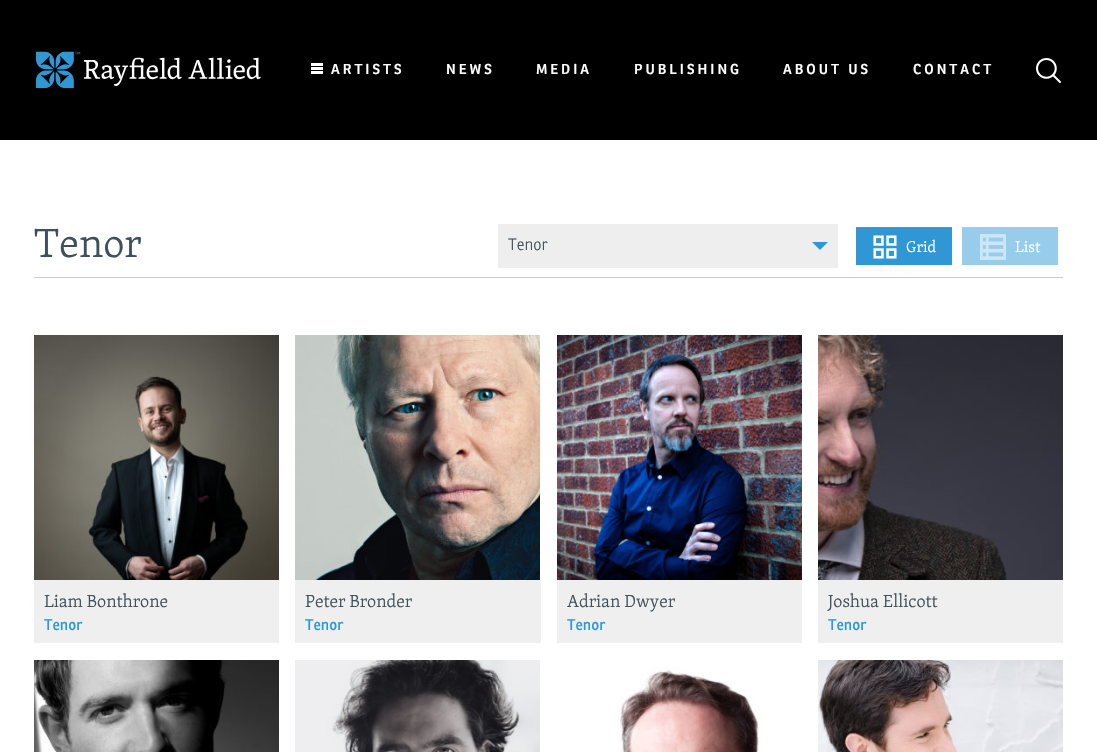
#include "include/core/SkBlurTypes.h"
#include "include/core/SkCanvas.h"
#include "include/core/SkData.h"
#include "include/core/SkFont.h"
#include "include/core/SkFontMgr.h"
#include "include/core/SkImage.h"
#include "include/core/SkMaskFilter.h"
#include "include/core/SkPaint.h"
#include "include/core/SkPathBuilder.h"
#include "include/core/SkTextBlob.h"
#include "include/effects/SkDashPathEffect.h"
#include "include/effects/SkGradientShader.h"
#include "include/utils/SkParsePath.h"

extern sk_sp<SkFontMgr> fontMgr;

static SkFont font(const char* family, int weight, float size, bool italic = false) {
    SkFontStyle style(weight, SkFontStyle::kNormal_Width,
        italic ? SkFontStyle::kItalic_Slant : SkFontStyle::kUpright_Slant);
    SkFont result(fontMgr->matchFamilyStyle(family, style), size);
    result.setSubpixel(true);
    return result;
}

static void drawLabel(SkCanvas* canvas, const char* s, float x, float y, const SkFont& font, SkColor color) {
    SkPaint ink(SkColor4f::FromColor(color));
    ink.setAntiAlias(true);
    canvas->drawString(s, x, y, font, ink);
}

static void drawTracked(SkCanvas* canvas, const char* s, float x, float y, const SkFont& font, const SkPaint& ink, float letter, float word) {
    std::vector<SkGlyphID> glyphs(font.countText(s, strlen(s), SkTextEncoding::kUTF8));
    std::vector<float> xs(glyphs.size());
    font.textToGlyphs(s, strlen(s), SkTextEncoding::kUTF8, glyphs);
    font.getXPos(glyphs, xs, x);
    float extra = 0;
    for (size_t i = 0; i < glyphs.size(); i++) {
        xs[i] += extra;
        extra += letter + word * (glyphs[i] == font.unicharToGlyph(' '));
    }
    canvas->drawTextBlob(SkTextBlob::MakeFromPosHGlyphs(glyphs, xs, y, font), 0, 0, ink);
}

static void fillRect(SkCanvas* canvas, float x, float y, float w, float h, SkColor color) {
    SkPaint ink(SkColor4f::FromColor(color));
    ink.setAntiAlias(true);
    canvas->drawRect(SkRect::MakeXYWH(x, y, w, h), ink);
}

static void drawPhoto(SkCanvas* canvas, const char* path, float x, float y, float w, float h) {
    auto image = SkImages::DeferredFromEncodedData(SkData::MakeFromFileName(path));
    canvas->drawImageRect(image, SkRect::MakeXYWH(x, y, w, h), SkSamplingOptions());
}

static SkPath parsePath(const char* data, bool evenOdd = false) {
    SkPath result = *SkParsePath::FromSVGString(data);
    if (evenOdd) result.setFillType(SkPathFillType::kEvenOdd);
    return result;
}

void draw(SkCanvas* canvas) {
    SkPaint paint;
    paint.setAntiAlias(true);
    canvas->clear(0xFFFFFFFF);
    fillRect(canvas, 0, 0, 1097, 140, 0xFF000000);
    drawPhoto(canvas, "assets/img1.png", 36, 51, 225, 38);
    fillRect(canvas, 311, 63, 12, 3, 0xFFFFFFFF);
    fillRect(canvas, 311, 71, 12, 3, 0xFFFFFFFF);
    fillRect(canvas, 311, 67, 12, 3, 0xFFFFFFFF);
    SkFont font1 = font("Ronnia", 600, 14);
    paint.setColor(0xFFFFFFFF);
    drawTracked(canvas, "ARTISTS", 331, 74, font1, paint, 3, 0);
    drawTracked(canvas, "NEWS", 446, 74, font1, paint, 3, 0);
    drawTracked(canvas, "MEDIA", 536, 74, font1, paint, 3, 0);
    drawTracked(canvas, "PUBLISHING", 634, 74, font1, paint, 3, 0);
    drawTracked(canvas, "ABOUT US", 783, 74, font1, paint, 3, 0);
    drawTracked(canvas, "CONTACT", 913, 74, font1, paint, 3, 0);
    drawPhoto(canvas, "assets/img2.png", 1036, 58, 25, 25);
    fillRect(canvas, 34, 277, 1029, 1, 0xFFCCCCCC);
    SkFont font2 = font("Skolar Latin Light", 300, 42);
    drawLabel(canvas, "Tenor", 34, 257, font2, 0xFF3E505B);
    fillRect(canvas, 498, 224, 340, 44, 0xFFEEEEEE);
    SkFont font3 = font("Ronnia", 300, 16);
    drawLabel(canvas, "Tenor", 508, 250, font3, 0xFF3E505B);
    paint.setColor(0xFF2F98D4);
    canvas->drawPath(parsePath("M812 242H828L820 250Z"), paint);
    fillRect(canvas, 856, 228, 96, 37, 0xFF2F98D4);
    fillRect(canvas, 856, 227, 96, 1, 0xFF3E9FD7);
    drawPhoto(canvas, "assets/img3.png", 873, 235, 24, 24);
    SkFont font4 = font("Skolar Latin Light", 300, 16);
    drawLabel(canvas, "Grid", 906, 252, font4, 0xFFFFFFFF);
    fillRect(canvas, 962, 228, 96, 37, 0xFF97CCEA);
    fillRect(canvas, 962, 227, 96, 1, 0xFF9ED0EB);
    drawPhoto(canvas, "assets/img4.png", 980, 234, 26, 26);
    drawLabel(canvas, "List", 1015, 252, font4, 0xFFFFFFFF);
    drawPhoto(canvas, "assets/img5.png", 34, 335, 245, 245);
    fillRect(canvas, 34, 580, 245, 63, 0xFFEFEFEF);
    SkFont font5 = font("Skolar Latin Light", 300, 18);
    drawLabel(canvas, "Liam Bonthrone", 44, 607, font5, 0xFF3E505B);
    SkFont font6 = font("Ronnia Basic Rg", 400, 15);
    drawLabel(canvas, "Tenor", 44, 630, font6, 0xFF2F98D4);
    drawPhoto(canvas, "assets/img6.png", 295, 335, 245, 245);
    fillRect(canvas, 295, 580, 246, 63, 0xFFEFEFEF);
    drawLabel(canvas, "Peter Bronder", 305, 607, font5, 0xFF3E505B);
    drawLabel(canvas, "Tenor", 305, 630, font6, 0xFF2F98D4);
    drawPhoto(canvas, "assets/img7.png", 557, 335, 245, 245);
    fillRect(canvas, 557, 580, 245, 63, 0xFFEFEFEF);
    drawLabel(canvas, "Adrian Dwyer", 567, 607, font5, 0xFF3E505B);
    drawLabel(canvas, "Tenor", 567, 630, font6, 0xFF2F98D4);
    drawPhoto(canvas, "assets/img8.png", 818, 335, 245, 245);
    fillRect(canvas, 818, 580, 245, 63, 0xFFEFEFEF);
    drawLabel(canvas, "Joshua Ellicott", 828, 607, font5, 0xFF3E505B);
    drawLabel(canvas, "Tenor", 828, 630, font6, 0xFF2F98D4);
    drawPhoto(canvas, "assets/img9.png", 34, 660, 245, 92);
    drawPhoto(canvas, "assets/img10.png", 295, 660, 245, 92);
    drawPhoto(canvas, "assets/img11.png", 620, 667, 140, 85);
    drawPhoto(canvas, "assets/img12.png", 818, 660, 245, 92);
}
